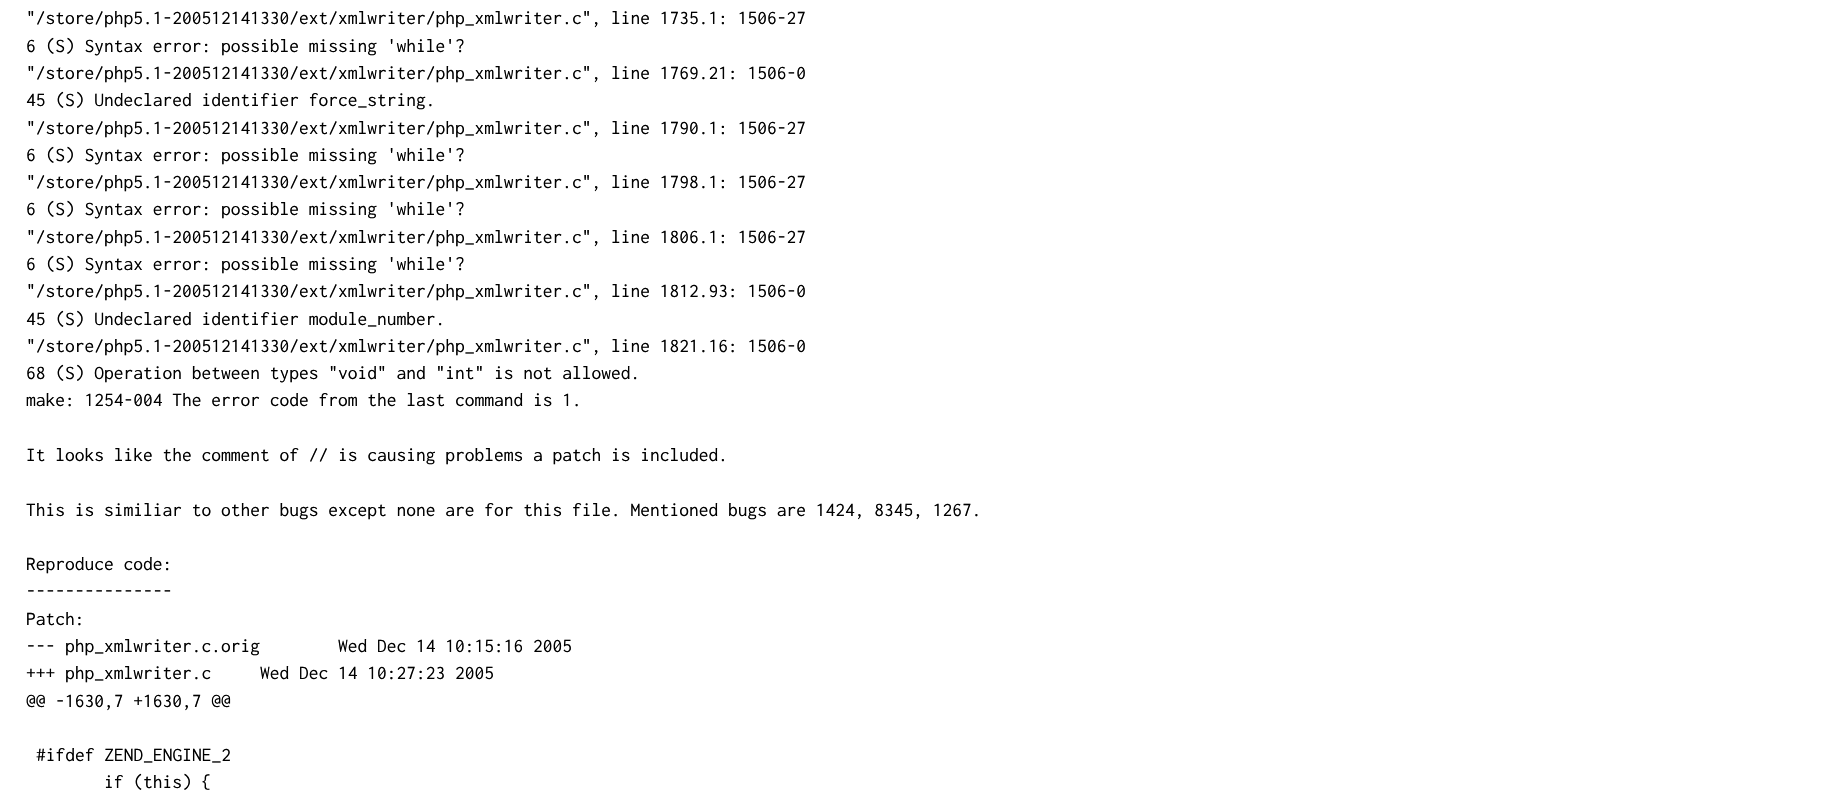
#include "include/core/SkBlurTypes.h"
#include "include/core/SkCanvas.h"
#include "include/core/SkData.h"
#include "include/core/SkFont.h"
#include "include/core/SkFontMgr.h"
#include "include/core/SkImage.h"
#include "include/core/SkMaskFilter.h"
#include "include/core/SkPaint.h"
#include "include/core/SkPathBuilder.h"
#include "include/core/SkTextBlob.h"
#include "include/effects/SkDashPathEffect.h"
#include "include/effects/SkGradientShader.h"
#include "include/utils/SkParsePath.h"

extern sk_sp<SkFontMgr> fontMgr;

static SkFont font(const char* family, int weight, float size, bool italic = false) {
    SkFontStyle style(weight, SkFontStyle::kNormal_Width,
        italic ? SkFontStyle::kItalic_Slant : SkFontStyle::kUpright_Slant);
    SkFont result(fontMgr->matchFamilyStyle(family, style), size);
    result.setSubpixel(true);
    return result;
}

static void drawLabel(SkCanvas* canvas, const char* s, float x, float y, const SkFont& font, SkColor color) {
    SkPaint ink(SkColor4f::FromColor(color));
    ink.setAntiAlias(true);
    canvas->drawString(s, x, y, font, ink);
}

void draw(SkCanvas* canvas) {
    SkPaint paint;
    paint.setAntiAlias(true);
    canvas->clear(0xFFFFFFFF);
    SkFont font1 = font("Inconsolata", 400, 19.5f);
    drawLabel(canvas, "\"/store/php5.1-200512141330/ext/xmlwriter/php_xmlwriter.c\", line 1735.1: 1506-27", 26, 24, font1, 0xFF000000);
    drawLabel(canvas, "6 (S) Syntax error: possible missing 'while'?", 26, 52, font1, 0xFF000000);
    drawLabel(canvas, "\"/store/php5.1-200512141330/ext/xmlwriter/php_xmlwriter.c\", line 1769.21: 1506-0", 26, 79, font1, 0xFF000000);
    drawLabel(canvas, "45 (S) Undeclared identifier force_string.", 26, 106, font1, 0xFF000000);
    drawLabel(canvas, "\"/store/php5.1-200512141330/ext/xmlwriter/php_xmlwriter.c\", line 1790.1: 1506-27", 26, 134, font1, 0xFF000000);
    drawLabel(canvas, "6 (S) Syntax error: possible missing 'while'?", 26, 161, font1, 0xFF000000);
    drawLabel(canvas, "\"/store/php5.1-200512141330/ext/xmlwriter/php_xmlwriter.c\", line 1798.1: 1506-27", 26, 188, font1, 0xFF000000);
    drawLabel(canvas, "6 (S) Syntax error: possible missing 'while'?", 26, 215, font1, 0xFF000000);
    drawLabel(canvas, "\"/store/php5.1-200512141330/ext/xmlwriter/php_xmlwriter.c\", line 1806.1: 1506-27", 26, 243, font1, 0xFF000000);
    drawLabel(canvas, "6 (S) Syntax error: possible missing 'while'?", 26, 270, font1, 0xFF000000);
    drawLabel(canvas, "\"/store/php5.1-200512141330/ext/xmlwriter/php_xmlwriter.c\", line 1812.93: 1506-0", 26, 297, font1, 0xFF000000);
    drawLabel(canvas, "45 (S) Undeclared identifier module_number.", 26, 325, font1, 0xFF000000);
    drawLabel(canvas, "\"/store/php5.1-200512141330/ext/xmlwriter/php_xmlwriter.c\", line 1821.16: 1506-0", 26, 352, font1, 0xFF000000);
    drawLabel(canvas, "68 (S) Operation between types \"void\" and \"int\" is not allowed.", 26, 379, font1, 0xFF000000);
    drawLabel(canvas, "make: 1254-004 The error code from the last command is 1.", 26, 406, font1, 0xFF000000);
    drawLabel(canvas, "It looks like the comment of // is causing problems a patch is included.", 26, 461, font1, 0xFF000000);
    drawLabel(canvas, "This is similiar to other bugs except none are for this file. Mentioned bugs are 1424, 8345, 1267.", 26, 516, font1, 0xFF000000);
    drawLabel(canvas, "Reproduce code:", 26, 570, font1, 0xFF000000);
    drawLabel(canvas, "---------------", 26, 597, font1, 0xFF000000);
    drawLabel(canvas, "Patch:", 26, 625, font1, 0xFF000000);
    drawLabel(canvas, "--- php_xmlwriter.c.orig        Wed Dec 14 10:15:16 2005", 26, 652, font1, 0xFF000000);
    drawLabel(canvas, "+++ php_xmlwriter.c     Wed Dec 14 10:27:23 2005", 26, 679, font1, 0xFF000000);
    drawLabel(canvas, "@@ -1630,7 +1630,7 @@", 26, 707, font1, 0xFF000000);
    drawLabel(canvas, "#ifdef ZEND_ENGINE_2", 36, 761, font1, 0xFF000000);
    drawLabel(canvas, "if (this) {", 104, 788, font1, 0xFF000000);
}
